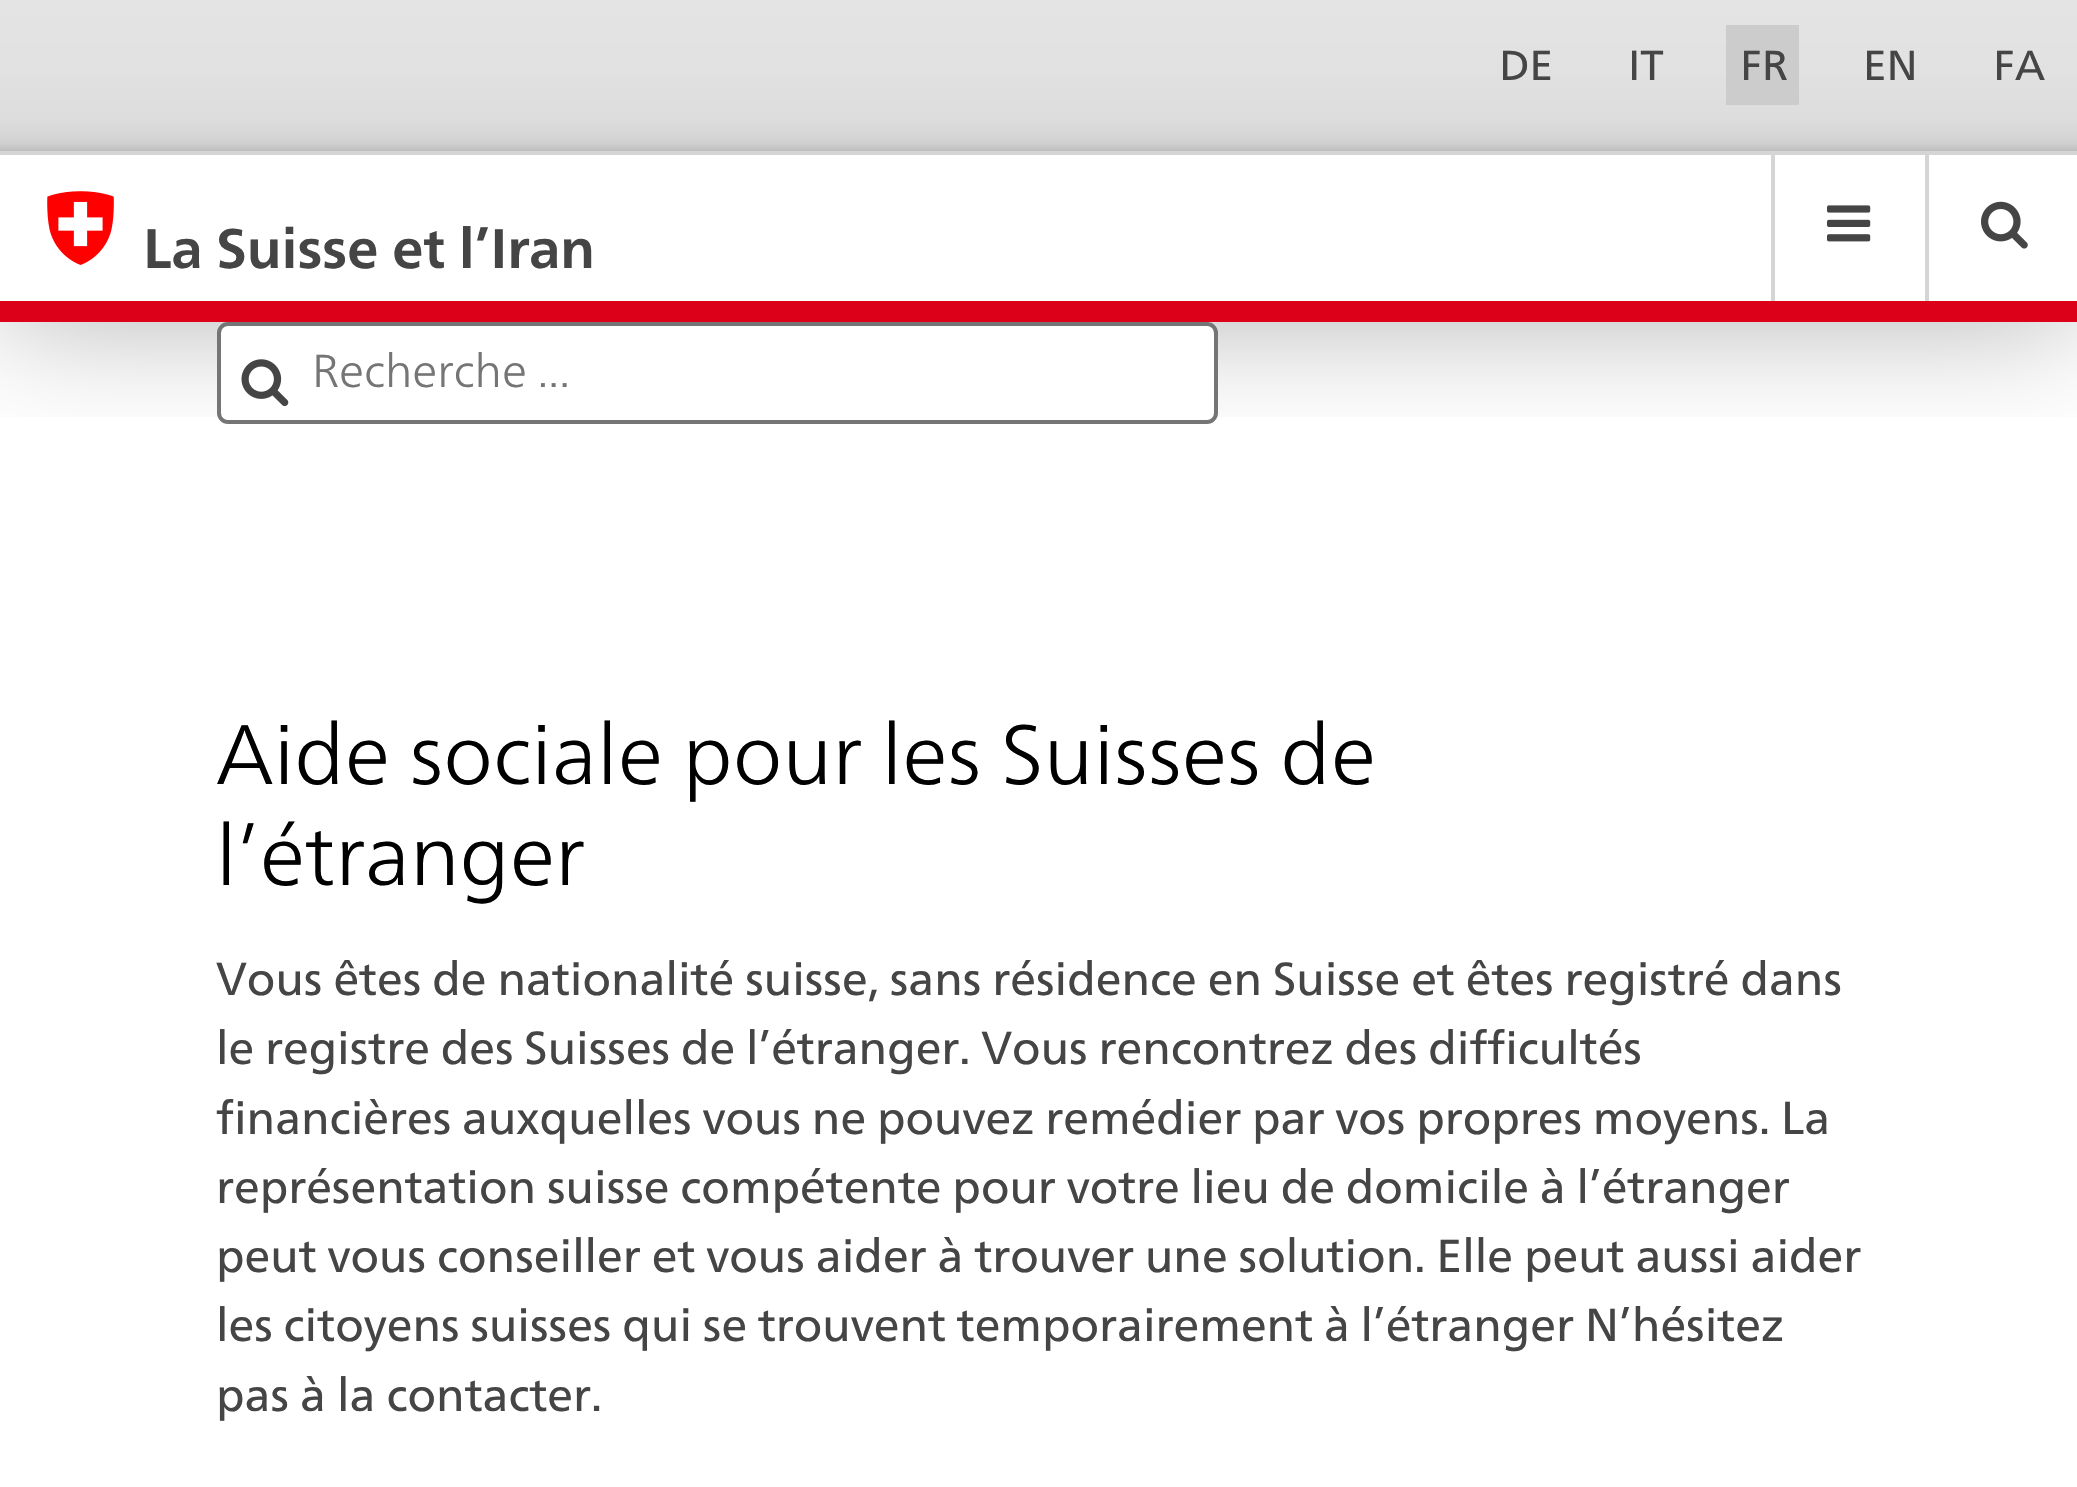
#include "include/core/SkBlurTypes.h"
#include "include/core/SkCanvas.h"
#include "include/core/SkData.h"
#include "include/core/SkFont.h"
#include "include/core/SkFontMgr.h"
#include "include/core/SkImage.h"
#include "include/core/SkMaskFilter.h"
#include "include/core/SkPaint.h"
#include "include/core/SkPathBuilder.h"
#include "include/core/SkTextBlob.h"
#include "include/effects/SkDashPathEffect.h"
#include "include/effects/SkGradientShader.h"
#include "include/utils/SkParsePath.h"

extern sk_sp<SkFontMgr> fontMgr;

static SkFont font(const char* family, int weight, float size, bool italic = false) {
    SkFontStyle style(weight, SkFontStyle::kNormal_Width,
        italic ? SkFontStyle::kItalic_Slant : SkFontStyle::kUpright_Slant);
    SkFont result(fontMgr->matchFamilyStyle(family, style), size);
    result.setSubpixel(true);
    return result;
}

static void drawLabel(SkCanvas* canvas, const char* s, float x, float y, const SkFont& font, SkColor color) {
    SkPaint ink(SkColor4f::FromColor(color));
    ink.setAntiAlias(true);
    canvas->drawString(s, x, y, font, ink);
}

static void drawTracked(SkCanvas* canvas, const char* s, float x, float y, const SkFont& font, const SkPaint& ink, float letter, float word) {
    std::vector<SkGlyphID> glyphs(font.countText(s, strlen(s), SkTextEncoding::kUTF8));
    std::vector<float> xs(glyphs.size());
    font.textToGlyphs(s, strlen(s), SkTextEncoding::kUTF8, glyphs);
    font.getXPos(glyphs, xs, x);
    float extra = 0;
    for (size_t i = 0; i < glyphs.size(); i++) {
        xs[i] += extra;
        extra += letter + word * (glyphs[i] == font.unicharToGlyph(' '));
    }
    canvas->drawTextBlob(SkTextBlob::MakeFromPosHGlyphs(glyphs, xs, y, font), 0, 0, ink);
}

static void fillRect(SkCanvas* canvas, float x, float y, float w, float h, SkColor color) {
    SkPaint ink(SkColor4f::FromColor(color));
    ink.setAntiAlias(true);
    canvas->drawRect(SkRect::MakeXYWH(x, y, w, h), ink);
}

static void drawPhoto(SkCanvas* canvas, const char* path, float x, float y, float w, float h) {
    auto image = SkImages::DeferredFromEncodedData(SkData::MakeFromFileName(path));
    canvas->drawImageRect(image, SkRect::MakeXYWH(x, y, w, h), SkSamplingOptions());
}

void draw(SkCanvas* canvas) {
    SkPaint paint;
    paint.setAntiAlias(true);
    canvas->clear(0xFFFFFFFF);
    canvas->save();
    canvas->clipRect(SkRect::MakeXYWH(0, 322, 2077, 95));
    paint.setColor(0x4D000000);
    paint.setMaskFilter(SkMaskFilter::MakeBlur(kNormal_SkBlurStyle, 63));
    canvas->drawRect(SkRect::MakeXYWH(0, 154, 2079, 168), paint);
    paint.setMaskFilter(nullptr);
    canvas->restore();
    {
        const SkColor colors[] = {0xFFE4E4E4, 0xFFE2E2E2, 0xFFDDDDDD, 0xFFD5D5D5, 0xFFCFCFCF, 0xFFBEBEBE};
        const float stops[] = {0, 0.39f, 0.79f, 0.91f, 0.95f, 1};
        const SkPoint ends[] = {{1040, 0}, {1040, 151}};
        paint.setShader(SkGradientShader::MakeLinear(ends, colors, stops, 6, SkTileMode::kClamp));
        paint.setAlpha(255);
    }
    canvas->drawRect(SkRect::MakeXYWH(0, 0, 2077, 151), paint);
    fillRect(canvas, 1771, 154, 4, 147, 0xFFD5D5D5);
    fillRect(canvas, 1925, 154, 4, 147, 0xFFD5D5D5);
    fillRect(canvas, 0, 151, 2077, 4, 0xFFD5D5D5);
    SkFont font1 = font("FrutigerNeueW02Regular", 400, 42);
    drawLabel(canvas, "DE", 1499, 80, font1, 0xFF454545);
    drawLabel(canvas, "IT", 1628, 80, font1, 0xFF454545);
    fillRect(canvas, 1726, 25, 73, 80, 0xFFCCCCCC);
    drawLabel(canvas, "FR", 1740, 80, font1, 0xFF454545);
    drawLabel(canvas, "EN", 1863, 80, font1, 0xFF454545);
    drawLabel(canvas, "FA", 1993, 80, font1, 0xFF454545);
    fillRect(canvas, 0, 301, 2077, 21, 0xFFDC0018);
    drawPhoto(canvas, "assets/img1.png", 47, 191, 67, 74);
    SkFont font2 = font("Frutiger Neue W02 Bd", 700, 55.5f);
    drawLabel(canvas, "La Suisse et l’Iran", 143, 268, font2, 0xFF454545);
    drawPhoto(canvas, "assets/img2.png", 1827, 205, 44, 37);
    drawPhoto(canvas, "assets/img3.png", 1981, 201, 47, 48);
    paint.setShader(nullptr);
    paint.setColor(0xFFFFFFFF);
    canvas->drawRoundRect(SkRect::MakeXYWH(219, 324, 997, 98), 9, 9, paint);
    paint.setStroke(true);
    paint.setStrokeWidth(4);
    paint.setColor(0xFF757575);
    canvas->drawRoundRect(SkRect::MakeXYWH(219, 324, 997, 98), 9, 9, paint);
    drawPhoto(canvas, "assets/img4.png", 241, 359, 48, 48);
    SkFont font3 = font("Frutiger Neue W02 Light", 300, 46.2f);
    drawLabel(canvas, "Recherche ...", 312, 387, font3, 0xFF757575);
    SkFont font4 = font("Frutiger Neue W02 Light", 300, 84);
    drawLabel(canvas, "Aide sociale pour les Suisses de", 216, 784, font4, 0xFF000000);
    drawLabel(canvas, "l’étranger", 216, 885, font4, 0xFF000000);
    SkFont font5 = font("FrutigerNeueW02Regular", 400, 46.2f);
    paint.setStroke(false);
    paint.setColor(0xFF454545);
    drawTracked(canvas, "Vous êtes de nationalité suisse, sans résidence en Suisse et êtes registré dans", 216, 995, font5, paint, 0, -0.1f);
    drawTracked(canvas, "le registre des Suisses de l’étranger. Vous rencontrez des difficultés", 216, 1064, font5, paint, 0, -0.25f);
    drawTracked(canvas, "financières auxquelles vous ne pouvez remédier par vos propres moyens. La", 216, 1134, font5, paint, 0, -0.25f);
    drawTracked(canvas, "représentation suisse compétente pour votre lieu de domicile à l’étranger", 216, 1203, font5, paint, 0, -0.25f);
    drawTracked(canvas, "peut vous conseiller et vous aider à trouver une solution. Elle peut aussi aider", 216, 1272, font5, paint, 0, -0.1f);
    drawTracked(canvas, "les citoyens suisses qui se trouvent temporairement à l’étranger N’hésitez", 216, 1341, font5, paint, 0, -0.25f);
    drawLabel(canvas, "pas à la contacter.", 216, 1411, font5, 0xFF454545);
}
